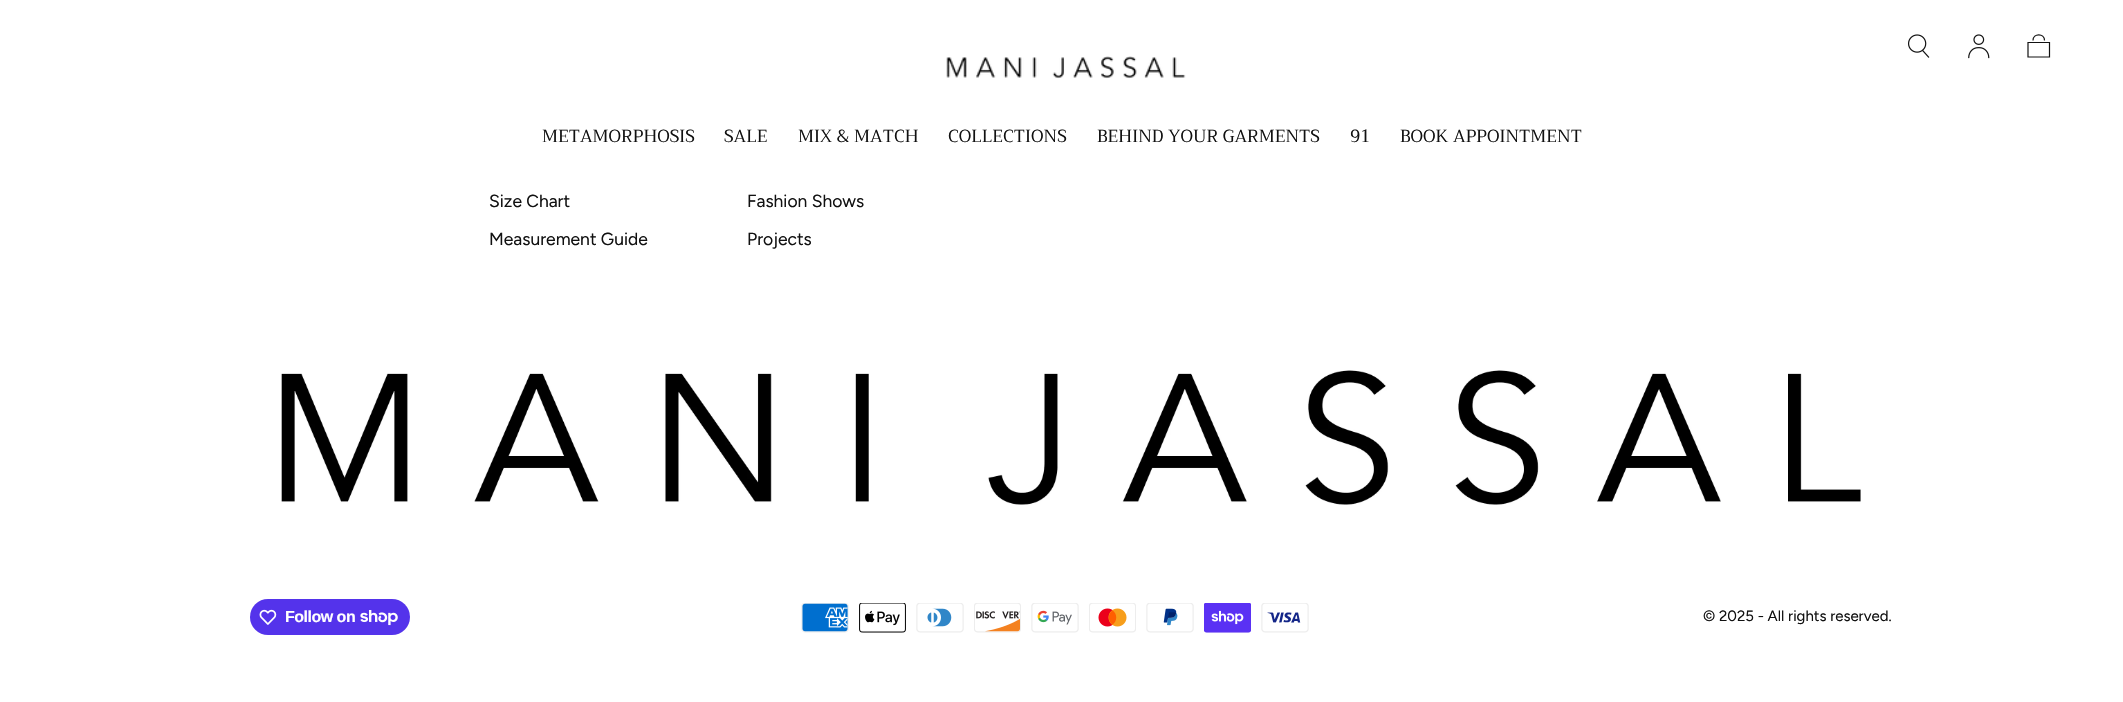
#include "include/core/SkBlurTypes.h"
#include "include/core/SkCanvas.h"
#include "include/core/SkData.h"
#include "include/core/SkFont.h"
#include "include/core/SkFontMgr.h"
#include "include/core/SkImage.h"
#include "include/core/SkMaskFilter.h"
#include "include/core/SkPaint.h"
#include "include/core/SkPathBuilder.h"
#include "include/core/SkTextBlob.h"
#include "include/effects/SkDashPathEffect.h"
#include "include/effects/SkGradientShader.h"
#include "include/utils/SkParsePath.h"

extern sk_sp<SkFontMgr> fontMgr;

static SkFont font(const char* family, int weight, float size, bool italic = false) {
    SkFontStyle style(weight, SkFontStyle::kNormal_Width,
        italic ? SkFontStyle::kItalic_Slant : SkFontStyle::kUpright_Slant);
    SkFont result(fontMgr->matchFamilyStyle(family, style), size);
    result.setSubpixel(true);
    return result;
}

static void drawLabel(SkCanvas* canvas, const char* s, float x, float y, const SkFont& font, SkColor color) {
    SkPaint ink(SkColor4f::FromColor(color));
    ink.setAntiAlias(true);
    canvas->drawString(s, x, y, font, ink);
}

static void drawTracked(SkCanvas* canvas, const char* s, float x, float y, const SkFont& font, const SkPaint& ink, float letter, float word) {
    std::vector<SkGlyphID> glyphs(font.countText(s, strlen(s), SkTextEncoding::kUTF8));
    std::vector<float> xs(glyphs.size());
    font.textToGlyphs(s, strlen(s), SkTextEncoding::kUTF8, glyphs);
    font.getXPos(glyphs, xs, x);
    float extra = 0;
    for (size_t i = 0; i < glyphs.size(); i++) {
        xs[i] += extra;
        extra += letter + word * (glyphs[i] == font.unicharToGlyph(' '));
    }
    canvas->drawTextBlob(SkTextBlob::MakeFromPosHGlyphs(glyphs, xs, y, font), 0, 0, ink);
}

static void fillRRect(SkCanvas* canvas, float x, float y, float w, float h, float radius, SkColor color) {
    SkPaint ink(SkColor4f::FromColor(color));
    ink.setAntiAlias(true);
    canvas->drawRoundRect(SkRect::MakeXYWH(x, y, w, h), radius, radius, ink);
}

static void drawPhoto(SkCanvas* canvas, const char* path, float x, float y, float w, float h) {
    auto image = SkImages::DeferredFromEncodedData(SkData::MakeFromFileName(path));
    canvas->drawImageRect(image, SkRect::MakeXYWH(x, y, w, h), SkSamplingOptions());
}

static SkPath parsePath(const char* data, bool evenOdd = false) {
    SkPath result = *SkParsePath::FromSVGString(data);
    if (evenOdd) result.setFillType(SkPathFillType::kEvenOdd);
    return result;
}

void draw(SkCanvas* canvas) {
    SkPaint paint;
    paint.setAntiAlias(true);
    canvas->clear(0xFFFFFFFF);
    drawPhoto(canvas, "assets/img1.png", 1908, 34, 22, 24);
    drawPhoto(canvas, "assets/img2.png", 1968, 34, 22, 25);
    paint.setStroke(true);
    paint.setStrokeWidth(1.2f);
    paint.setColor(0xFF111111);
    canvas->drawPath(parsePath("M2049.5 57H2028V42.5H2049.5ZM2044.5 40.5C2044.5 33 2033 33 2033 40.5"), paint);
    drawPhoto(canvas, "assets/img3.png", 946, 56, 240, 23);
    SkFont font1 = font("Trirong", 400, 17.5f);
    drawLabel(canvas, "METAMORPHOSIS", 542, 142, font1, 0xFF111111);
    drawLabel(canvas, "SALE", 724, 142, font1, 0xFF111111);
    drawLabel(canvas, "MIX & MATCH", 798, 142, font1, 0xFF111111);
    drawLabel(canvas, "COLLECTIONS", 948, 142, font1, 0xFF111111);
    drawLabel(canvas, "BEHIND YOUR GARMENTS", 1097, 142, font1, 0xFF111111);
    drawLabel(canvas, "91", 1350, 142, font1, 0xFF111111);
    drawLabel(canvas, "BOOK APPOINTMENT", 1400, 142, font1, 0xFF111111);
    SkFont font2 = font("Figtree", 400, 17.5f);
    drawLabel(canvas, "Size Chart", 489, 207, font2, 0xFF111111);
    drawLabel(canvas, "Measurement Guide", 489, 245, font2, 0xFF111111);
    drawLabel(canvas, "Fashion Shows", 747, 207, font2, 0xFF111111);
    drawLabel(canvas, "Projects", 747, 245, font2, 0xFF111111);
    drawPhoto(canvas, "assets/img4.png", 281, 370, 1580, 135);
    fillRRect(canvas, 250, 599, 160, 36, 18, 0xFF5433EB);
    drawPhoto(canvas, "assets/img5.png", 259, 609, 18, 16);
    SkFont font3 = font("Liberation Sans", 700, 16);
    paint.setStroke(false);
    paint.setColor(0xFFFFFFFF);
    drawTracked(canvas, "Follow on", 285, 622, font3, paint, -0.5f, 0);
    drawPhoto(canvas, "assets/img6.png", 360, 610, 38, 16);
    drawPhoto(canvas, "assets/img7.png", 801, 603, 48, 30);
    drawPhoto(canvas, "assets/img8.png", 859, 603, 47, 30);
    drawPhoto(canvas, "assets/img9.png", 916, 603, 48, 30);
    drawPhoto(canvas, "assets/img10.png", 974, 603, 47, 30);
    drawPhoto(canvas, "assets/img11.png", 1031, 603, 48, 30);
    drawPhoto(canvas, "assets/img12.png", 1089, 603, 47, 30);
    drawPhoto(canvas, "assets/img13.png", 1146, 603, 48, 30);
    drawPhoto(canvas, "assets/img14.png", 1204, 603, 47, 30);
    drawPhoto(canvas, "assets/img15.png", 1261, 603, 48, 30);
    SkFont font4 = font("Figtree", 400, 15);
    drawLabel(canvas, "© 2025 - All rights reserved.", 1703, 621, font4, 0xFF111111);
}
